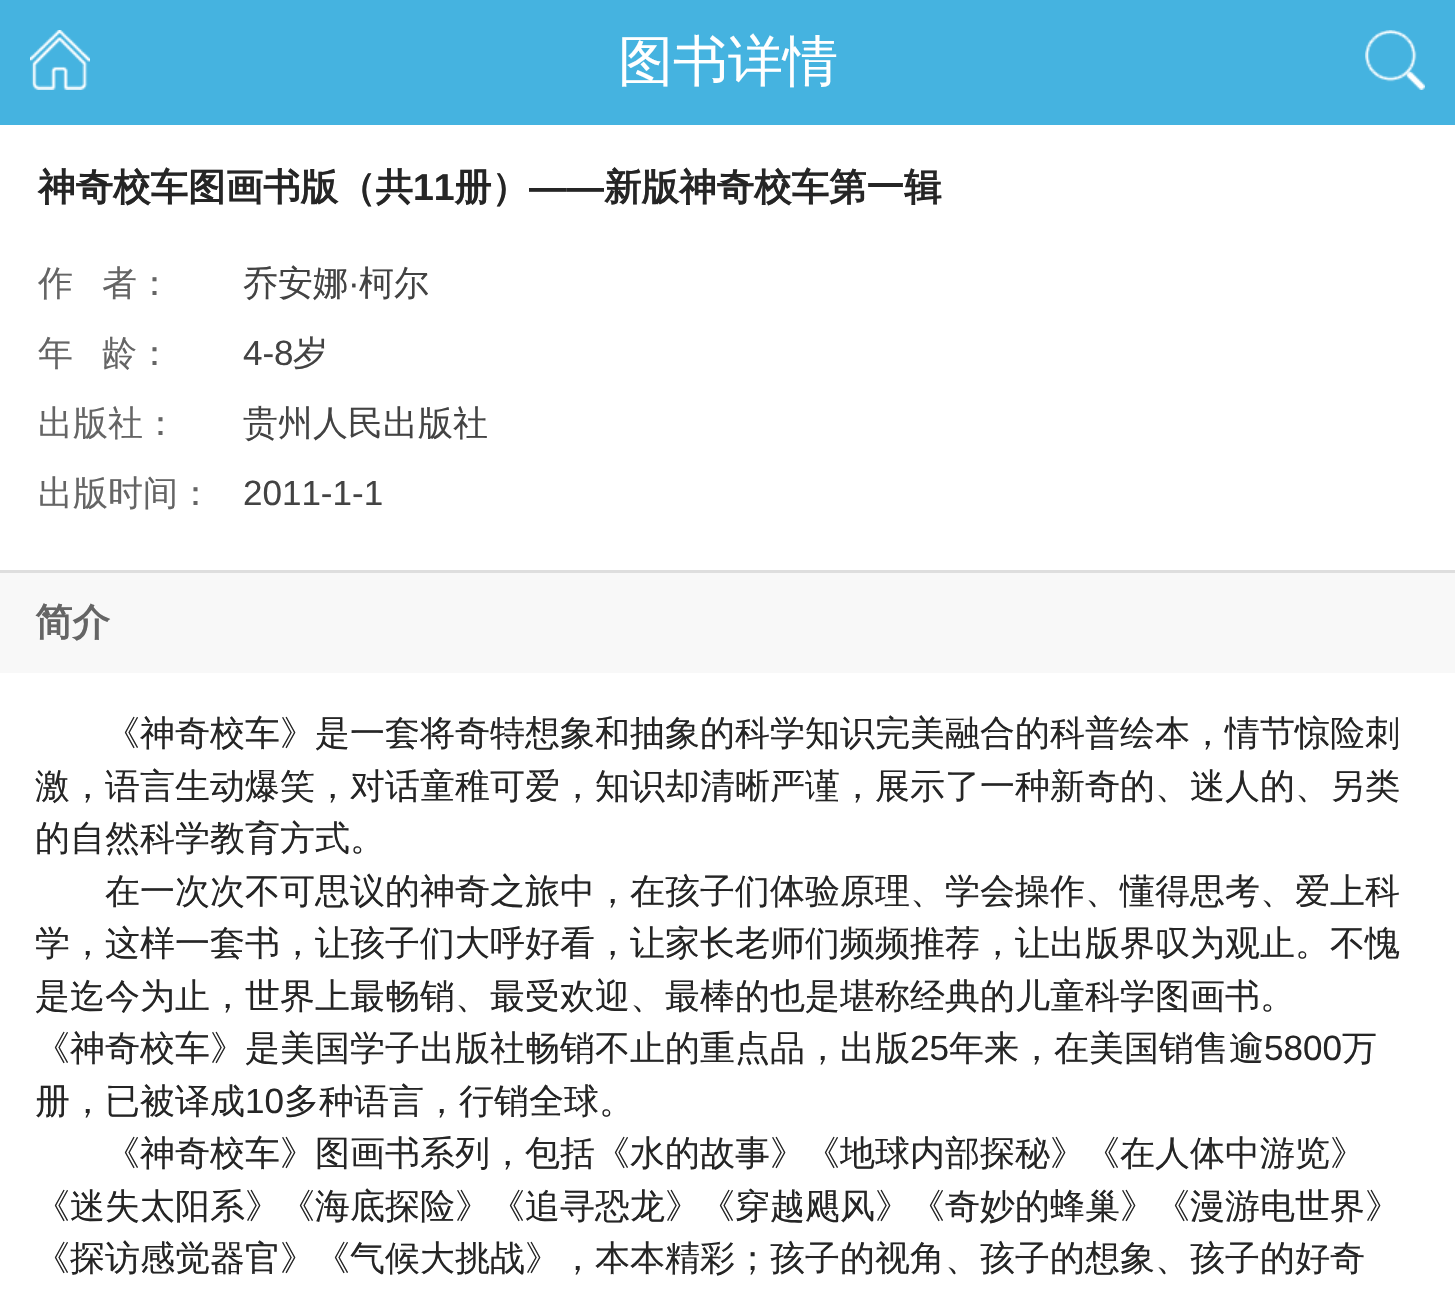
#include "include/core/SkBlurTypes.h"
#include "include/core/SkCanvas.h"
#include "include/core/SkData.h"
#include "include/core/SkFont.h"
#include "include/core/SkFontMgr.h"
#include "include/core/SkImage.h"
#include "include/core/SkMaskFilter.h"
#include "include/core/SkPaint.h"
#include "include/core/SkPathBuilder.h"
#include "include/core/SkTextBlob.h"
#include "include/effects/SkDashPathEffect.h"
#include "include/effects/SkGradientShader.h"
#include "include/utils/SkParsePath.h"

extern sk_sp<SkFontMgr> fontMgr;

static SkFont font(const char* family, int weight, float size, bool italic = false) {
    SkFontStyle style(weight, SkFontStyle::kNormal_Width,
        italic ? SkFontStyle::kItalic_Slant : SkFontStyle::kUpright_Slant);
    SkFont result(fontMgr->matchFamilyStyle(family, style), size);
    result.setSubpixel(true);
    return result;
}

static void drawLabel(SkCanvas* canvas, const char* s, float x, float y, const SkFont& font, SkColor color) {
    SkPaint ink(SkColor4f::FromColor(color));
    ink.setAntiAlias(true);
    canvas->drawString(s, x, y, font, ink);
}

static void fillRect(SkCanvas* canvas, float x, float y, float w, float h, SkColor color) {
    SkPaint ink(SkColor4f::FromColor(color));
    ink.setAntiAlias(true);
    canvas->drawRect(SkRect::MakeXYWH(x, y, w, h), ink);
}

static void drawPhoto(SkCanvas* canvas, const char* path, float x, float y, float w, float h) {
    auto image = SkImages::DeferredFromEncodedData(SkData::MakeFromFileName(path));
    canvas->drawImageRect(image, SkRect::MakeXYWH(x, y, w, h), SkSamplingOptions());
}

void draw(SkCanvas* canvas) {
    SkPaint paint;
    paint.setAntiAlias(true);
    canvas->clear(0xFFFFFFFF);
    fillRect(canvas, 0, 0, 1455, 125, 0xFF45B3E0);
    drawPhoto(canvas, "assets/img1.png", 30, 30, 60, 60);
    SkFont font1 = font("WenQuanYi Zen Hei", 500, 55);
    drawLabel(canvas, "图书详情", 618, 80, font1, 0xFFFFFFFF);
    drawPhoto(canvas, "assets/img2.png", 1365, 30, 60, 60);
    SkFont font2 = font("WenQuanYi Zen Hei", 700, 37.5f);
    drawLabel(canvas, "神奇校车图画书版（共", 38, 200, font2, 0xFF252525);
    SkFont font3 = font("Liberation Sans", 700, 37.5f);
    drawLabel(canvas, "11", 413, 200, font3, 0xFF252525);
    drawLabel(canvas, "册）", 454, 200, font2, 0xFF252525);
    drawLabel(canvas, "――", 529, 200, font3, 0xFF252525);
    drawLabel(canvas, "新版神奇校车第一辑", 604, 200, font2, 0xFF252525);
    SkFont font4 = font("WenQuanYi Zen Hei", 500, 35);
    drawLabel(canvas, "作", 38, 295, font4, 0xFF656565);
    drawLabel(canvas, "者：", 102, 295, font4, 0xFF656565);
    drawLabel(canvas, "乔安娜", 243, 295, font4, 0xFF434343);
    SkFont font5 = font("Liberation Sans", 400, 35);
    drawLabel(canvas, "·", 348, 295, font5, 0xFF434343);
    drawLabel(canvas, "柯尔", 359, 295, font4, 0xFF434343);
    drawLabel(canvas, "年", 38, 365, font4, 0xFF656565);
    drawLabel(canvas, "龄：", 102, 365, font4, 0xFF656565);
    drawLabel(canvas, "4-8", 243, 365, font5, 0xFF434343);
    drawLabel(canvas, "岁", 293, 365, font4, 0xFF434343);
    drawLabel(canvas, "出版社：", 38, 435, font4, 0xFF656565);
    drawLabel(canvas, "贵州人民出版社", 243, 435, font4, 0xFF434343);
    drawLabel(canvas, "出版时间：", 38, 505, font4, 0xFF656565);
    drawLabel(canvas, "2011-1-1", 243, 505, font5, 0xFF434343);
    fillRect(canvas, 0, 573, 1455, 100, 0xFFF8F8F8);
    fillRect(canvas, 0, 570, 1455, 3, 0xFFDEDEDE);
    drawLabel(canvas, "简介", 35, 635, font2, 0xFF656565);
    drawLabel(canvas, "《神奇校车》是一套将奇特想象和抽象的科学知识完美融合的科普绘本，情节惊险刺", 105, 745, font4, 0xFF252525);
    drawLabel(canvas, "激，语言生动爆笑，对话童稚可爱，知识却清晰严谨，展示了一种新奇的、迷人的、另类", 35, 798, font4, 0xFF252525);
    drawLabel(canvas, "的自然科学教育方式。", 35, 850, font4, 0xFF252525);
    drawLabel(canvas, "在一次次不可思议的神奇之旅中，在孩子们体验原理、学会操作、懂得思考、爱上科", 105, 903, font4, 0xFF252525);
    drawLabel(canvas, "学，这样一套书，让孩子们大呼好看，让家长老师们频频推荐，让出版界叹为观止。不愧", 35, 955, font4, 0xFF252525);
    drawLabel(canvas, "是迄今为止，世界上最畅销、最受欢迎、最棒的也是堪称经典的儿童科学图画书。", 35, 1008, font4, 0xFF252525);
    drawLabel(canvas, "《神奇校车》是美国学子出版社畅销不止的重点品，出版", 35, 1060, font4, 0xFF252525);
    drawLabel(canvas, "25", 910, 1060, font5, 0xFF252525);
    drawLabel(canvas, "年来，在美国销售逾", 949, 1060, font4, 0xFF252525);
    drawLabel(canvas, "5800", 1264, 1060, font5, 0xFF252525);
    drawLabel(canvas, "万", 1342, 1060, font4, 0xFF252525);
    drawLabel(canvas, "册，已被译成", 35, 1113, font4, 0xFF252525);
    drawLabel(canvas, "10", 245, 1113, font5, 0xFF252525);
    drawLabel(canvas, "多种语言，行销全球。", 284, 1113, font4, 0xFF252525);
    drawLabel(canvas, "《神奇校车》图画书系列，包括《水的故事》《地球内部探秘》《在人体中游览》", 105, 1165, font4, 0xFF252525);
    drawLabel(canvas, "《迷失太阳系》《海底探险》《追寻恐龙》《穿越飓风》《奇妙的蜂巢》《漫游电世界》", 35, 1218, font4, 0xFF252525);
    drawLabel(canvas, "《探访感觉器官》《气候大挑战》，本本精彩；孩子的视角、孩子的想象、孩子的好奇", 35, 1270, font4, 0xFF252525);
}
